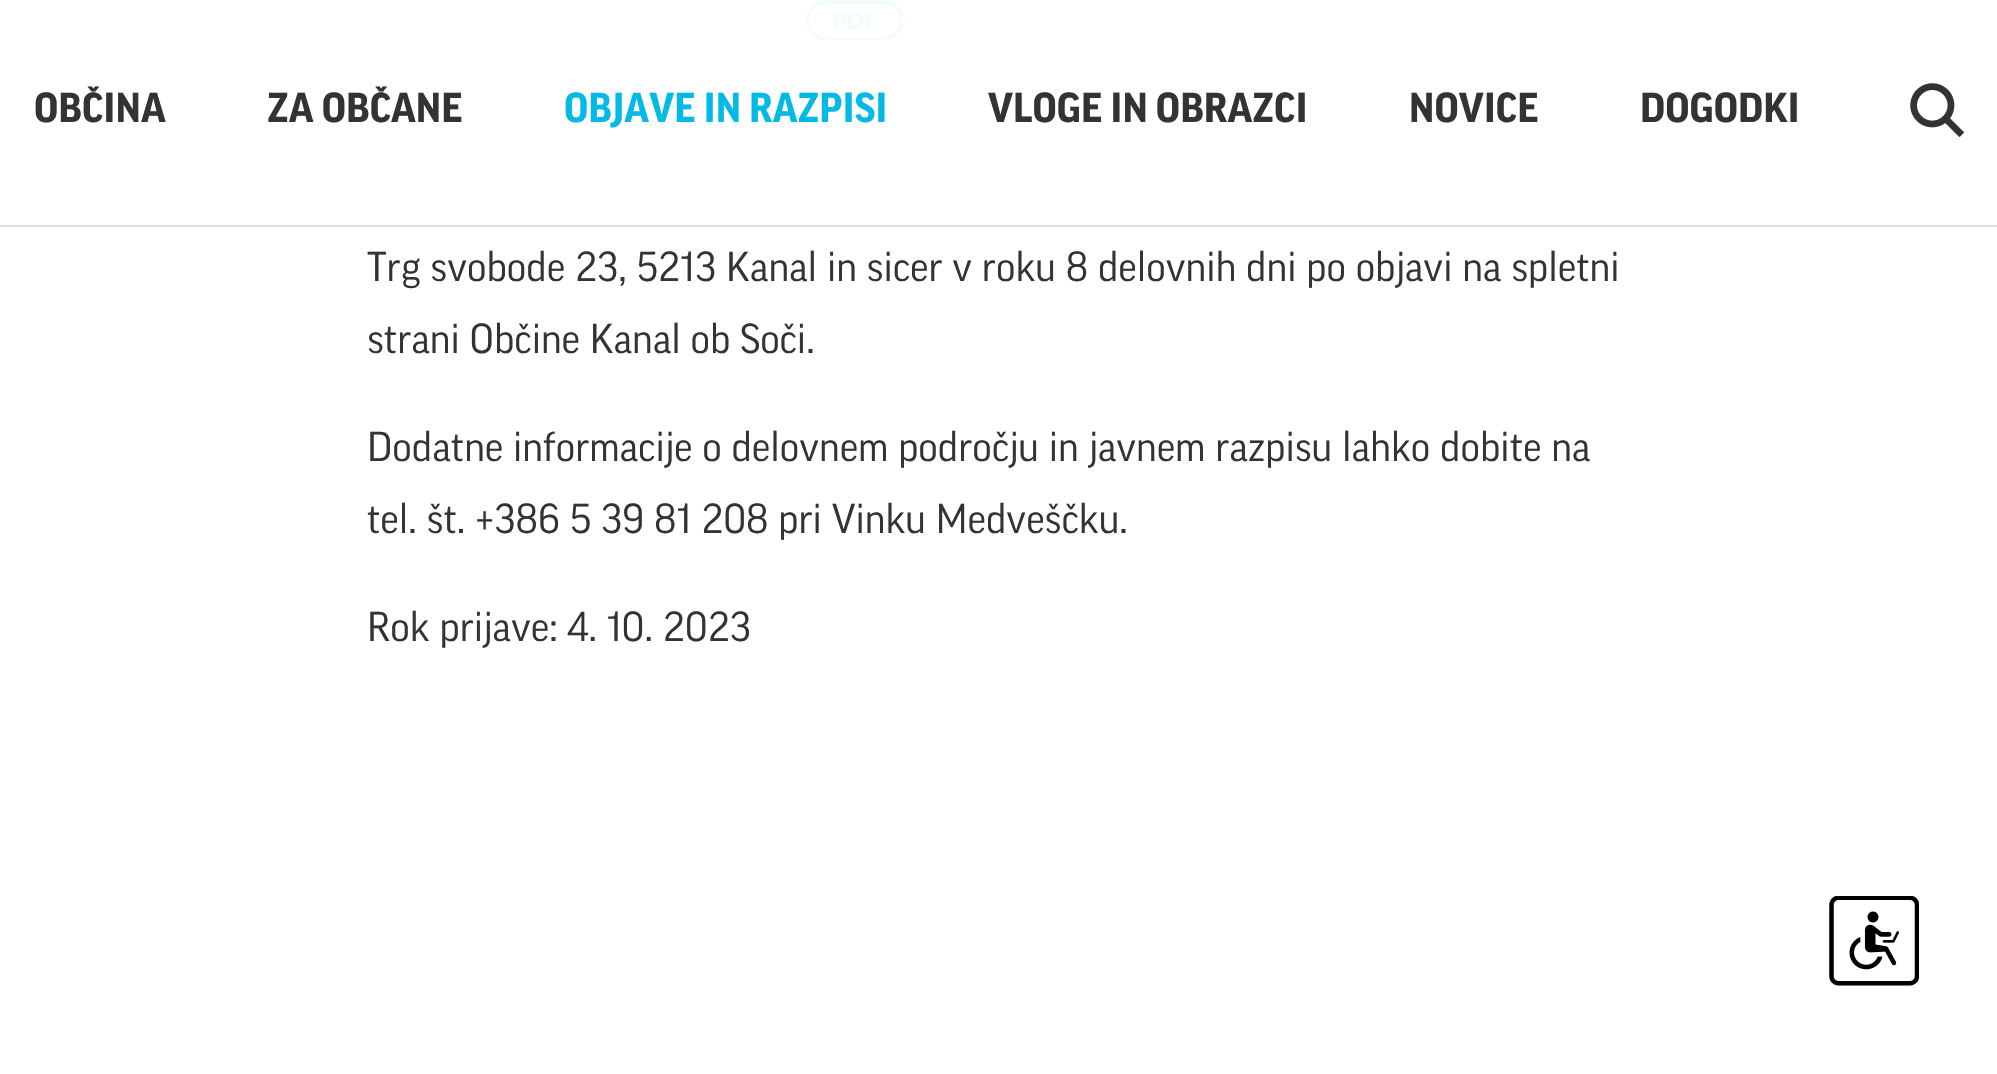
#include "include/core/SkBlurTypes.h"
#include "include/core/SkCanvas.h"
#include "include/core/SkData.h"
#include "include/core/SkFont.h"
#include "include/core/SkFontMgr.h"
#include "include/core/SkImage.h"
#include "include/core/SkMaskFilter.h"
#include "include/core/SkPaint.h"
#include "include/core/SkPathBuilder.h"
#include "include/core/SkTextBlob.h"
#include "include/effects/SkDashPathEffect.h"
#include "include/effects/SkGradientShader.h"
#include "include/utils/SkParsePath.h"

extern sk_sp<SkFontMgr> fontMgr;

static SkFont font(const char* family, int weight, float size, bool italic = false) {
    SkFontStyle style(weight, SkFontStyle::kNormal_Width,
        italic ? SkFontStyle::kItalic_Slant : SkFontStyle::kUpright_Slant);
    SkFont result(fontMgr->matchFamilyStyle(family, style), size);
    result.setSubpixel(true);
    return result;
}

static void drawLabel(SkCanvas* canvas, const char* s, float x, float y, const SkFont& font, SkColor color) {
    SkPaint ink(SkColor4f::FromColor(color));
    ink.setAntiAlias(true);
    canvas->drawString(s, x, y, font, ink);
}

static void fillRect(SkCanvas* canvas, float x, float y, float w, float h, SkColor color) {
    SkPaint ink(SkColor4f::FromColor(color));
    ink.setAntiAlias(true);
    canvas->drawRect(SkRect::MakeXYWH(x, y, w, h), ink);
}

static void drawPhoto(SkCanvas* canvas, const char* path, float x, float y, float w, float h) {
    auto image = SkImages::DeferredFromEncodedData(SkData::MakeFromFileName(path));
    canvas->drawImageRect(image, SkRect::MakeXYWH(x, y, w, h), SkSamplingOptions());
}

void draw(SkCanvas* canvas) {
    SkPaint paint;
    paint.setAntiAlias(true);
    canvas->clear(0xFFFFFFFF);
    fillRect(canvas, 0, 225, 1997, 2, 0xFFDEDEDE);
    SkFont font1 = font("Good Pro", 700, 40.5f);
    drawLabel(canvas, "OBČINA", 34, 122, font1, 0xFF333333);
    drawLabel(canvas, "ZA OBČANE", 267, 122, font1, 0xFF333333);
    drawLabel(canvas, "OBJAVE IN RAZPISI", 564, 122, font1, 0xFF03BAE6);
    drawLabel(canvas, "VLOGE IN OBRAZCI", 988, 122, font1, 0xFF333333);
    drawLabel(canvas, "NOVICE", 1409, 122, font1, 0xFF333333);
    drawLabel(canvas, "DOGODKI", 1640, 122, font1, 0xFF333333);
    drawPhoto(canvas, "assets/img1.png", 1910, 83, 54, 54);
    drawPhoto(canvas, "assets/img2.png", 806, 0, 96, 41);
    SkFont font2 = font("Good Pro", 400, 40.5f);
    drawLabel(canvas, "Trg svobode 23, 5213 Kanal in sicer v roku 8 delovnih dni po objavi na spletni", 367, 281, font2, 0xFF333333);
    drawLabel(canvas, "strani Občine Kanal ob Soči.", 367, 353, font2, 0xFF333333);
    drawLabel(canvas, "Dodatne informacije o delovnem področju in javnem razpisu lahko dobite na", 367, 461, font2, 0xFF333333);
    drawLabel(canvas, "tel. št. +386 5 39 81 208 pri Vinku Medveščku.", 367, 533, font2, 0xFF333333);
    drawLabel(canvas, "Rok prijave: 4. 10. 2023", 367, 641, font2, 0xFF333333);
    drawPhoto(canvas, "assets/img3.png", 1829, 896, 90, 90);
}
